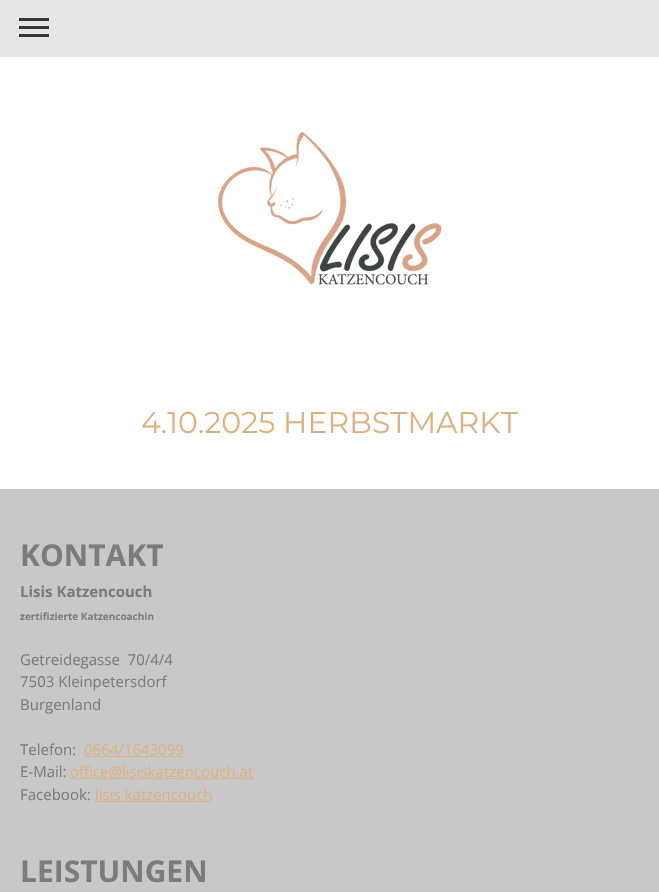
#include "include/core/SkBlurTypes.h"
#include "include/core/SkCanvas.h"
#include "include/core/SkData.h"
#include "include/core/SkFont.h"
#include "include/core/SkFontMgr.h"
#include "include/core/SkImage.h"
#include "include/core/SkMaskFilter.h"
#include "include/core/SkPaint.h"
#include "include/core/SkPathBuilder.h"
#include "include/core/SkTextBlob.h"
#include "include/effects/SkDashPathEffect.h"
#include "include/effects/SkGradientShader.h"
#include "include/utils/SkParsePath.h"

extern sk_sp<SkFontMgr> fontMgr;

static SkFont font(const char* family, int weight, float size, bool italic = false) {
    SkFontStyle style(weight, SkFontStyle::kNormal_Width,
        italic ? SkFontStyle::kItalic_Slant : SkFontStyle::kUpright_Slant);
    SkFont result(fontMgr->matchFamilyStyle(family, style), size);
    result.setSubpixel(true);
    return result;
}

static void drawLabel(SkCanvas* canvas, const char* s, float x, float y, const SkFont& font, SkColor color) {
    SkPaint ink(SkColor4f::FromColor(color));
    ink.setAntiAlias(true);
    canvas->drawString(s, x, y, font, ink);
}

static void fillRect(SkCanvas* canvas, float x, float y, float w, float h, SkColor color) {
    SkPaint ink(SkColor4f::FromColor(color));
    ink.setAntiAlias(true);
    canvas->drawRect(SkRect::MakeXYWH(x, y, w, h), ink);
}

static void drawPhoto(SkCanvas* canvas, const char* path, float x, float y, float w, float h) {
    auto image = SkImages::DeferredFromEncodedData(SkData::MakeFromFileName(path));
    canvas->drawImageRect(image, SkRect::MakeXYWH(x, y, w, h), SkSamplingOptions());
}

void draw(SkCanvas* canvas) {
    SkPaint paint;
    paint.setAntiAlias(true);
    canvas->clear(0xFFFFFFFF);
    fillRect(canvas, 0, 0, 659, 57, 0xFFE6E6E6);
    fillRect(canvas, 19, 26, 30, 3, 0xFF393731);
    fillRect(canvas, 19, 18, 30, 3, 0xFF393731);
    fillRect(canvas, 19, 34, 30, 3, 0xFF393731);
    drawPhoto(canvas, "assets/img1.png", 218, 131, 224, 154);
    SkFont font1 = font("Montserrat", 400, 30);
    drawLabel(canvas, "4.10.2025 HERBSTMARKT", 141, 433, font1, 0xFFDEB17F);
    fillRect(canvas, 0, 489, 659, 403, 0xFFC8C8C8);
    SkFont font2 = font("Open Sans", 700, 30);
    drawLabel(canvas, "KONTAKT", 20, 566, font2, 0xFF7C7C7C);
    SkFont font3 = font("Open Sans", 700, 15);
    drawLabel(canvas, "Lisis Katzencouch", 20, 597, font3, 0xFF7C7C7C);
    SkFont font4 = font("Open Sans", 700, 10);
    drawLabel(canvas, "zertifizierte Katzencoachin", 20, 620, font4, 0xFF7C7C7C);
    SkFont font5 = font("Open Sans", 400, 15);
    drawLabel(canvas, "Getreidegasse  70/4/4", 20, 665, font5, 0xFF7C7C7C);
    drawLabel(canvas, "7503 Kleinpetersdorf", 20, 687, font5, 0xFF7C7C7C);
    drawLabel(canvas, "Burgenland", 20, 710, font5, 0xFF7C7C7C);
    drawLabel(canvas, "Telefon:", 20, 755, font5, 0xFF7C7C7C);
    drawLabel(canvas, "0664/1643099", 84, 755, font5, 0xFFDEB17F);
    fillRect(canvas, 84, 756, 100, 1, 0xFFDEB17F);
    drawLabel(canvas, "E-Mail:", 20, 777, font5, 0xFF7C7C7C);
    fillRect(canvas, 70, 778, 184, 1, 0xFFDEB17F);
    drawLabel(canvas, "office@lisiskatzencouch.at", 70, 777, font5, 0xFFDEB17F);
    drawLabel(canvas, "Facebook:", 20, 800, font5, 0xFF7C7C7C);
    drawLabel(canvas, "lisis katzencouch", 95, 800, font5, 0xFFDEB17F);
    fillRect(canvas, 95, 801, 117, 1, 0xFFDEB17F);
    drawLabel(canvas, "LEISTUNGEN", 20, 882, font2, 0xFF7C7C7C);
}
